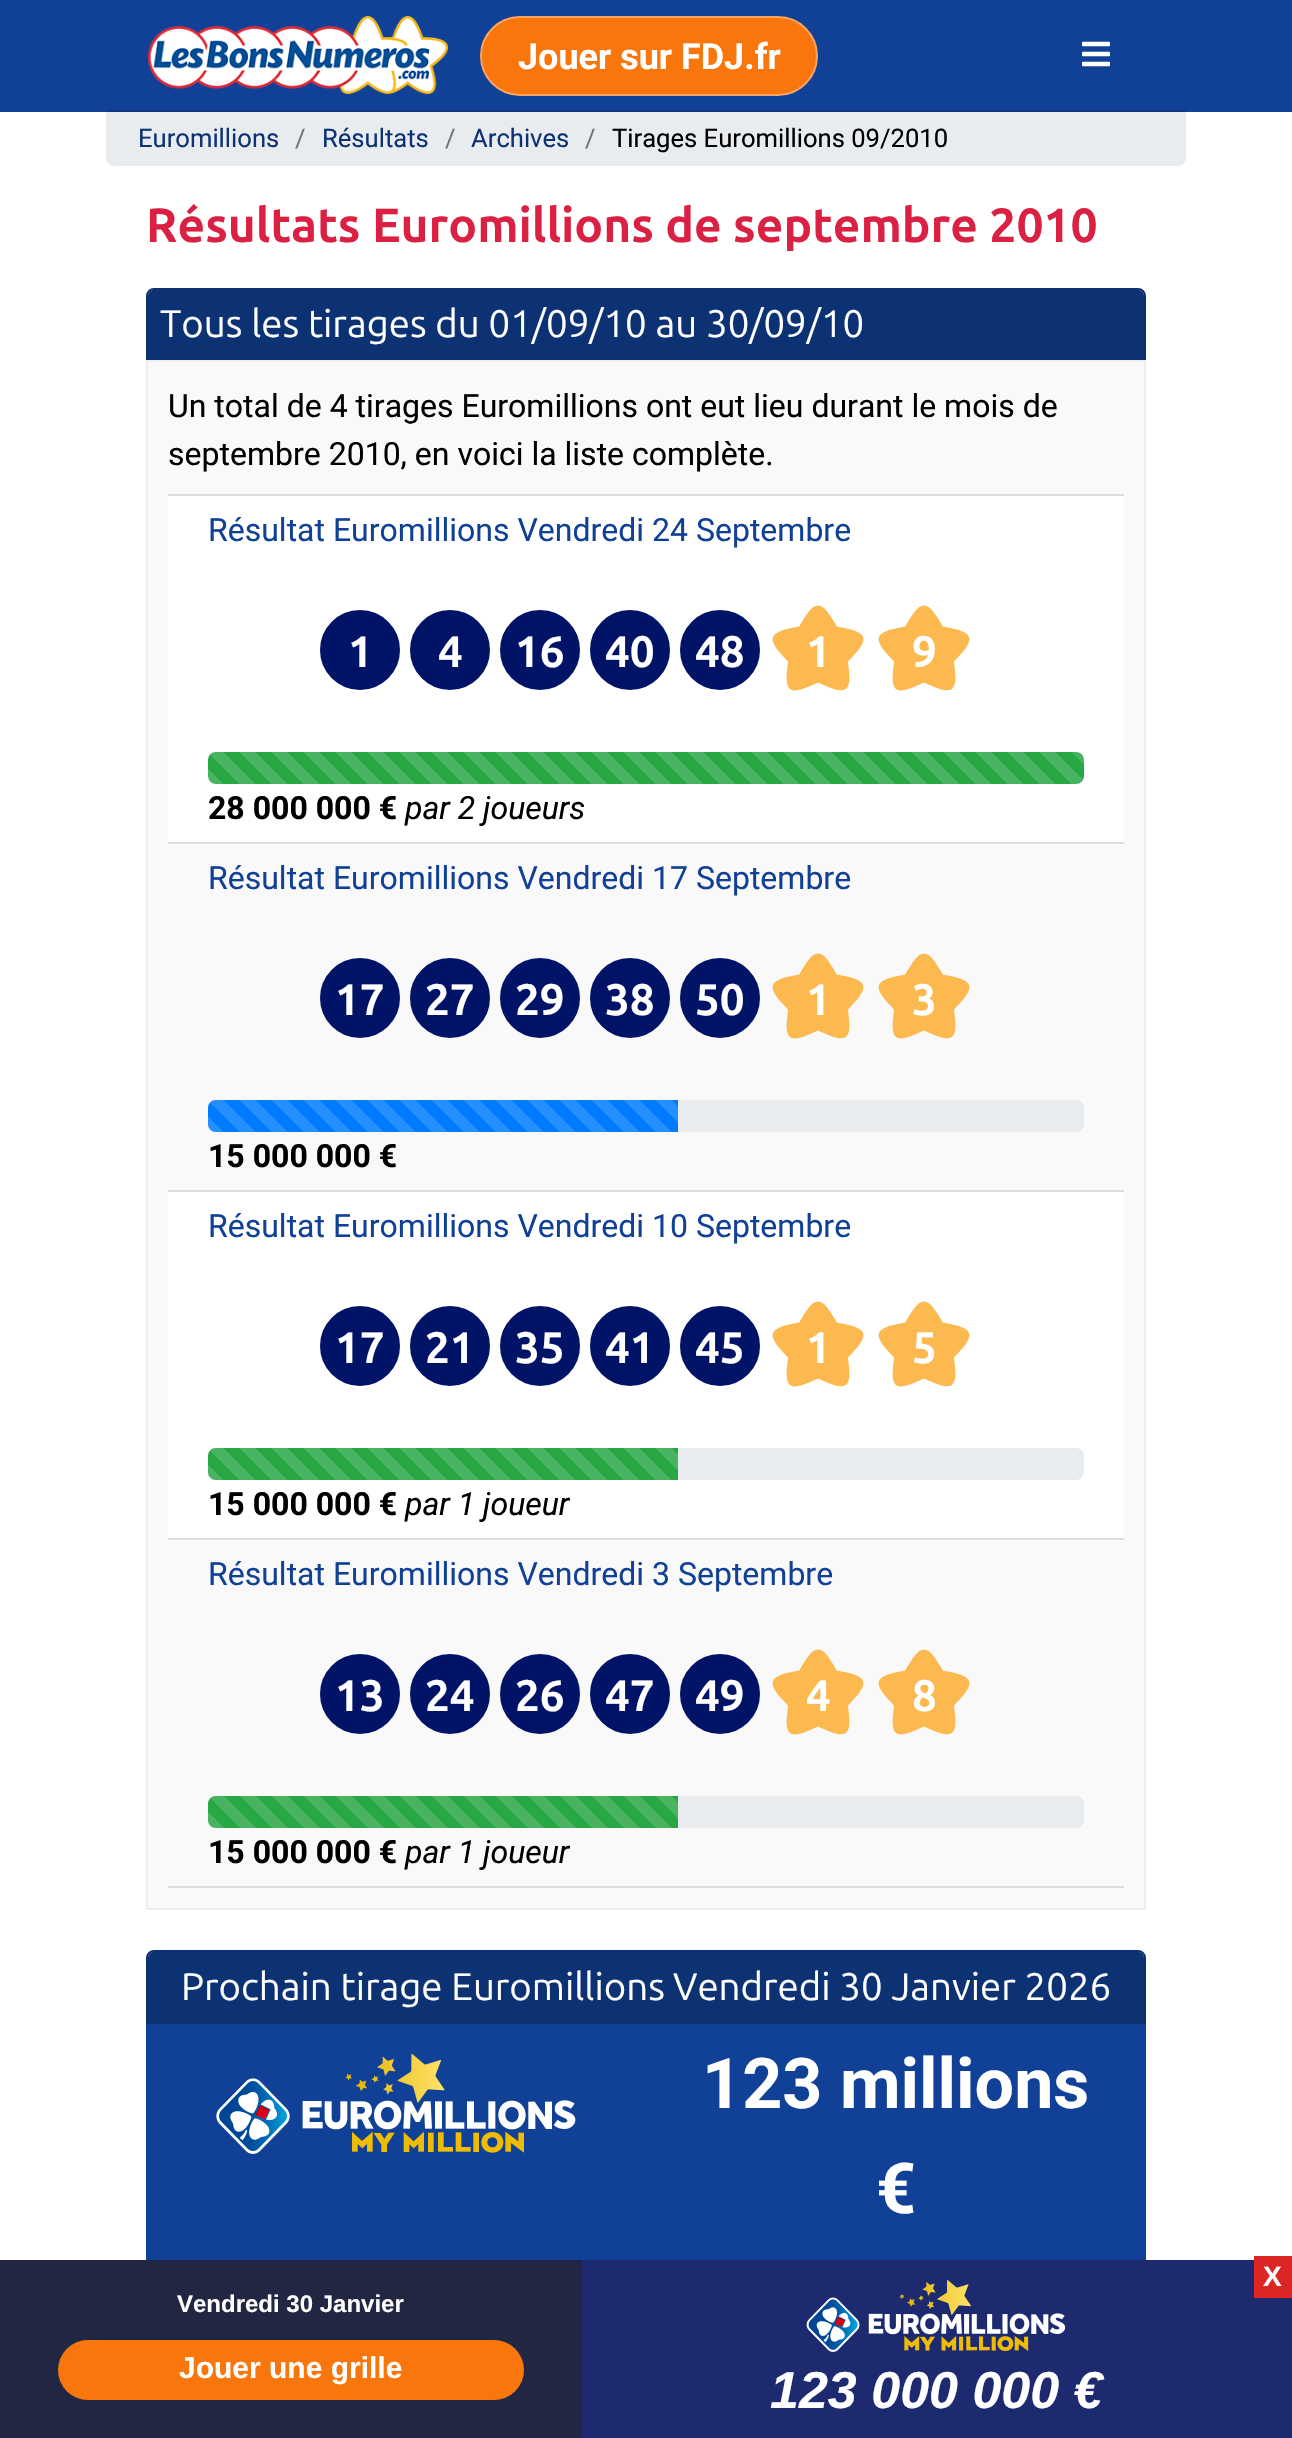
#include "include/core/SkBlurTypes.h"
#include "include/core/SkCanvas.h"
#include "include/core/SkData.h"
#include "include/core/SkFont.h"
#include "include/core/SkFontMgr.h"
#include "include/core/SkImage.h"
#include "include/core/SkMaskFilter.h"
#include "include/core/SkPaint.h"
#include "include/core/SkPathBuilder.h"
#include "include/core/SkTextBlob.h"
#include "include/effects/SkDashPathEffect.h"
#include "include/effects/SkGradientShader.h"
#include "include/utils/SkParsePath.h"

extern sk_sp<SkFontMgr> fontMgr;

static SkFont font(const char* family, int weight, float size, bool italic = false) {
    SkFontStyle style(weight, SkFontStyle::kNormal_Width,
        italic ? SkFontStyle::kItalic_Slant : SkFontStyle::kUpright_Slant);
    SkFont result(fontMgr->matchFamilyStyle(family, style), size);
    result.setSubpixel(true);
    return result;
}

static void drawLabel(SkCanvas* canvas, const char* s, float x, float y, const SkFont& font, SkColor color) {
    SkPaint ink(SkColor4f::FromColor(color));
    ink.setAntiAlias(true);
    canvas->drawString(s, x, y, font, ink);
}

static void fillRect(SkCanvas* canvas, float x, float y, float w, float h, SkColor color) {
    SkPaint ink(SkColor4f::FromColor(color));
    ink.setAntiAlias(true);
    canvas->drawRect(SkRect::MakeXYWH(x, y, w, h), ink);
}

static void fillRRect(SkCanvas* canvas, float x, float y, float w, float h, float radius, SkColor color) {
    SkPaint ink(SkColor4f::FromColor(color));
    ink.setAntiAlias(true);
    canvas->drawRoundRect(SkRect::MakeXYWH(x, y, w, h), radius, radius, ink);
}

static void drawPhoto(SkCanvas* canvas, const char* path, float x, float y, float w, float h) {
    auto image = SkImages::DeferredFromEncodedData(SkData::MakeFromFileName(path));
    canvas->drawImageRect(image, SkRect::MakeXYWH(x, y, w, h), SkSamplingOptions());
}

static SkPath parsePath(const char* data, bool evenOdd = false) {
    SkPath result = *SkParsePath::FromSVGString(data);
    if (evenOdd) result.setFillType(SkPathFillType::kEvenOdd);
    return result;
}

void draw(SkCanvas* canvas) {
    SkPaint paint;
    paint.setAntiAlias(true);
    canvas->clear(0xFFFFFFFF);
    fillRect(canvas, 0, 0, 1292, 112, 0xFF114196);
    fillRect(canvas, 106, 110, 1080, 2, 0xFF0E3780);
    drawPhoto(canvas, "assets/img1.png", 148, 16, 300, 78);
    paint.setColor(0xFFF9760D);
    canvas->drawRoundRect(SkRect::MakeXYWH(481, 17, 336, 78), 39, 39, paint);
    paint.setStroke(true);
    paint.setStrokeWidth(2);
    paint.setColor(0xFFFAA45F);
    canvas->drawRoundRect(SkRect::MakeXYWH(481, 17, 336, 78), 39, 39, paint);
    SkFont font1 = font("Roboto", 700, 36);
    drawLabel(canvas, "Jouer sur FDJ.fr", 518, 69, font1, 0xFFFFFFFF);
    drawPhoto(canvas, "assets/img2.png", 1082, 41, 28, 26);
    paint.setStroke(false);
    paint.setColor(0xFFE9ECEF);
    canvas->drawPath(parsePath("M106 112H1186V158C1186 162.5 1182.5 166 1178 166H114C109.5 166 106 162.5 106 158Z"), paint);
    SkFont font2 = font("Roboto", 400, 25.6f);
    drawLabel(canvas, "Euromillions", 138, 147, font2, 0xFF0C3274);
    drawLabel(canvas, "/", 295, 147, font2, 0xFF6C757D);
    drawLabel(canvas, "Résultats", 322, 147, font2, 0xFF0C3274);
    drawLabel(canvas, "/", 445, 147, font2, 0xFF6C757D);
    drawLabel(canvas, "Archives", 471, 147, font2, 0xFF0C3274);
    drawLabel(canvas, "/", 585, 147, font2, 0xFF6C757D);
    drawLabel(canvas, "Tirages Euromillions 09/2010", 612, 147, font2, 0xFF000000);
    SkFont font3 = font("Ubuntu", 700, 48);
    drawLabel(canvas, "Résultats Euromillions de septembre 2010", 146, 242, font3, 0xFFDA2144);
    paint.setStroke(true);
    paint.setColor(0xFF0C3274);
    canvas->drawPath(parsePath("M154 289H1138C1142 289 1145 292 1145 296V359H147V296C147 292 150 289 154 289Z"), paint);
    paint.setStroke(false);
    canvas->drawPath(parsePath("M154 290H1138C1141.5 290 1144 292.5 1144 296V358H148V296C148 292.5 150.5 290 154 290Z"), paint);
    SkFont font4 = font("Ubuntu", 400, 38.4f);
    drawLabel(canvas, "Tous les tirages du 01/09/10 au 30/09/10", 160, 337, font4, 0xFFFFFFFF);
    paint.setColor(0xFFF9F9F9);
    canvas->drawRect(SkRect::MakeXYWH(147, 361, 998, 1548), paint);
    paint.setStroke(true);
    paint.setColor(0xFFEEEEEE);
    canvas->drawRect(SkRect::MakeXYWH(147, 361, 998, 1548), paint);
    SkFont font5 = font("Roboto", 400, 32);
    drawLabel(canvas, "Un total de 4 tirages Euromillions ont eut lieu durant le mois de", 168, 417, font5, 0xFF000000);
    drawLabel(canvas, "septembre 2010, en voici la liste complète.", 168, 465, font5, 0xFF000000);
    fillRect(canvas, 168, 496, 956, 346, 0xFFFFFFFF);
    fillRect(canvas, 168, 494, 956, 2, 0xFFDDDDDD);
    fillRect(canvas, 168, 842, 956, 2, 0xFFDDDDDD);
    drawLabel(canvas, "Résultat Euromillions Vendredi 24 Septembre", 208, 541, font5, 0xFF114196);
    paint.setStroke(false);
    paint.setColor(0xFF001367);
    canvas->drawCircle(360, 650, 37, paint);
    paint.setStroke(true);
    paint.setStrokeWidth(6);
    canvas->drawCircle(360, 650, 37, paint);
    SkFont font6 = font("Ubuntu", 700, 44);
    drawLabel(canvas, "1", 348, 667, font6, 0xFFFFFFFF);
    paint.setStroke(false);
    canvas->drawCircle(450, 650, 37, paint);
    paint.setStroke(true);
    canvas->drawCircle(450, 650, 37, paint);
    drawLabel(canvas, "4", 438, 667, font6, 0xFFFFFFFF);
    paint.setStroke(false);
    canvas->drawCircle(540, 650, 37, paint);
    paint.setStroke(true);
    canvas->drawCircle(540, 650, 37, paint);
    drawLabel(canvas, "16", 515, 667, font6, 0xFFFFFFFF);
    paint.setStroke(false);
    canvas->drawCircle(630, 650, 37, paint);
    paint.setStroke(true);
    canvas->drawCircle(630, 650, 37, paint);
    drawLabel(canvas, "40", 605, 667, font6, 0xFFFFFFFF);
    paint.setStroke(false);
    canvas->drawCircle(720, 650, 37, paint);
    paint.setStroke(true);
    canvas->drawCircle(720, 650, 37, paint);
    drawLabel(canvas, "48", 695, 667, font6, 0xFFFFFFFF);
    paint.setStroke(false);
    paint.setColor(0xFFFBB94F);
    canvas->drawPath(parsePath("M835 629C867 635 868 637 845 660C849 691 847 693 818 679C789 693 787 692 791 660C768 637 769 635 801 629C817 601 819 601 835 629Z"), paint);
    paint.setStroke(true);
    paint.setStrokeWidth(5.6f);
    canvas->drawPath(parsePath("M835 629C867 635 867.5 637 845 660.5C849 691.5 847.5 693 818 679.5C788.5 693 787 692 791 660.5C768.5 637 769 635 801 629C817 601.5 819 601.5 835 629Z"), paint);
    drawLabel(canvas, "1", 806, 667, font6, 0xFFFFFFFF);
    paint.setStroke(false);
    canvas->drawPath(parsePath("M941 629C973 635 974 637 951 660C955 691 953 693 924 679C895 693 893 692 897 660C874 637 875 635 907 629C923 601 925 601 941 629Z"), paint);
    paint.setStroke(true);
    canvas->drawPath(parsePath("M941 629C973 635 973.5 637 951 660.5C955 691.5 953.5 693 924 679.5C894.5 693 893 692 897 660.5C874.5 637 875 635 907 629C923 601.5 925 601.5 941 629Z"), paint);
    drawLabel(canvas, "9", 912, 667, font6, 0xFFFFFFFF);
    fillRRect(canvas, 208, 752, 876, 32, 8, 0xFF28A745);
    drawPhoto(canvas, "assets/img3.png", 208, 752, 876, 32);
    SkFont font7 = font("Roboto", 700, 32);
    drawLabel(canvas, "28 000 000 €", 208, 819, font7, 0xFF000000);
    SkFont font8 = font("Roboto", 400, 32, true);
    drawLabel(canvas, "par 2 joueurs", 405, 819, font8, 0xFF000000);
    fillRect(canvas, 168, 1190, 956, 2, 0xFFDDDDDD);
    drawLabel(canvas, "Résultat Euromillions Vendredi 17 Septembre", 208, 889, font5, 0xFF114196);
    paint.setStroke(false);
    paint.setColor(0xFF001367);
    canvas->drawCircle(360, 998, 37, paint);
    paint.setStroke(true);
    paint.setStrokeWidth(6);
    canvas->drawCircle(360, 998, 37, paint);
    drawLabel(canvas, "17", 335, 1015, font6, 0xFFFFFFFF);
    paint.setStroke(false);
    canvas->drawCircle(450, 998, 37, paint);
    paint.setStroke(true);
    canvas->drawCircle(450, 998, 37, paint);
    drawLabel(canvas, "27", 425, 1015, font6, 0xFFFFFFFF);
    paint.setStroke(false);
    canvas->drawCircle(540, 998, 37, paint);
    paint.setStroke(true);
    canvas->drawCircle(540, 998, 37, paint);
    drawLabel(canvas, "29", 515, 1015, font6, 0xFFFFFFFF);
    paint.setStroke(false);
    canvas->drawCircle(630, 998, 37, paint);
    paint.setStroke(true);
    canvas->drawCircle(630, 998, 37, paint);
    drawLabel(canvas, "38", 605, 1015, font6, 0xFFFFFFFF);
    paint.setStroke(false);
    canvas->drawCircle(720, 998, 37, paint);
    paint.setStroke(true);
    canvas->drawCircle(720, 998, 37, paint);
    drawLabel(canvas, "50", 695, 1015, font6, 0xFFFFFFFF);
    paint.setStroke(false);
    paint.setColor(0xFFFBB94F);
    canvas->drawPath(parsePath("M835 977C867 983 868 985 845 1008C849 1039 847 1041 818 1027C789 1041 787 1040 791 1008C768 985 769 983 801 977C817 949 819 949 835 977Z"), paint);
    paint.setStroke(true);
    paint.setStrokeWidth(5.6f);
    canvas->drawPath(parsePath("M835 977C867 983 867.5 985 845 1008.5C849 1039.5 847.5 1041 818 1027.5C788.5 1041 787 1040 791 1008.5C768.5 985 769 983 801 977C817 949.5 819 949.5 835 977Z"), paint);
    drawLabel(canvas, "1", 806, 1015, font6, 0xFFFFFFFF);
    paint.setStroke(false);
    canvas->drawPath(parsePath("M941 977C973 983 974 985 951 1008C955 1039 953 1041 924 1027C895 1041 893 1040 897 1008C874 985 875 983 907 977C923 949 925 949 941 977Z"), paint);
    paint.setStroke(true);
    canvas->drawPath(parsePath("M941 977C973 983 973.5 985 951 1008.5C955 1039.5 953.5 1041 924 1027.5C894.5 1041 893 1040 897 1008.5C874.5 985 875 983 907 977C923 949.5 925 949.5 941 977Z"), paint);
    drawLabel(canvas, "3", 912, 1015, font6, 0xFFFFFFFF);
    fillRRect(canvas, 208, 1100, 876, 32, 8, 0xFFE9ECEF);
    paint.setStroke(false);
    paint.setColor(0xFF007BFF);
    canvas->drawPath(parsePath("M216 1100H678V1132H216C211.5 1132 208 1128.5 208 1124V1108C208 1103.5 211.5 1100 216 1100Z"), paint);
    {
        const SkColor colors[] = {0x26FFFFFF, 0x00FFFFFF, 0x00FFFFFF, 0x26FFFFFF, 0x26FFFFFF, 0x00FFFFFF, 0x00000000};
        const float stops[] = {0.25f, 0.25f, 0.5f, 0.5f, 0.75f, 0.75f, 1};
        const SkPoint ends[] = {{208, 1132}, {240, 1100}};
        paint.setShader(SkGradientShader::MakeLinear(ends, colors, stops, 7, SkTileMode::kClamp));
        paint.setAlpha(255);
    }
    canvas->drawPath(parsePath("M216 1100H240V1132H216C211.5 1132 208 1128.5 208 1124V1108C208 1103.5 211.5 1100 216 1100Z"), paint);
    {
        const SkColor colors[] = {0xFF268FFF, 0xFF007BFF, 0xFF007BFF, 0xFF268FFF, 0xFF268FFF, 0xFF007BFF, 0xFF007BFF};
        const float stops[] = {0.25f, 0.25f, 0.5f, 0.5f, 0.75f, 0.75f, 1};
        const SkPoint ends[] = {{240, 1132}, {272, 1100}};
        paint.setShader(SkGradientShader::MakeLinear(ends, colors, stops, 7, SkTileMode::kClamp));
        paint.setAlpha(255);
    }
    canvas->drawRect(SkRect::MakeXYWH(240, 1100, 32, 32), paint);
    {
        const SkColor colors[] = {0xFF268FFF, 0xFF007BFF, 0xFF007BFF, 0xFF268FFF, 0xFF268FFF, 0xFF007BFF, 0xFF007BFF};
        const float stops[] = {0.25f, 0.25f, 0.5f, 0.5f, 0.75f, 0.75f, 1};
        const SkPoint ends[] = {{272, 1132}, {304, 1100}};
        paint.setShader(SkGradientShader::MakeLinear(ends, colors, stops, 7, SkTileMode::kClamp));
        paint.setAlpha(255);
    }
    canvas->drawRect(SkRect::MakeXYWH(272, 1100, 32, 32), paint);
    {
        const SkColor colors[] = {0xFF268FFF, 0xFF007BFF, 0xFF007BFF, 0xFF268FFF, 0xFF268FFF, 0xFF007BFF, 0xFF007BFF};
        const float stops[] = {0.25f, 0.25f, 0.5f, 0.5f, 0.75f, 0.75f, 1};
        const SkPoint ends[] = {{304, 1132}, {336, 1100}};
        paint.setShader(SkGradientShader::MakeLinear(ends, colors, stops, 7, SkTileMode::kClamp));
        paint.setAlpha(255);
    }
    canvas->drawRect(SkRect::MakeXYWH(304, 1100, 32, 32), paint);
    {
        const SkColor colors[] = {0xFF268FFF, 0xFF007BFF, 0xFF007BFF, 0xFF268FFF, 0xFF268FFF, 0xFF007BFF, 0xFF007BFF};
        const float stops[] = {0.25f, 0.25f, 0.5f, 0.5f, 0.75f, 0.75f, 1};
        const SkPoint ends[] = {{336, 1132}, {368, 1100}};
        paint.setShader(SkGradientShader::MakeLinear(ends, colors, stops, 7, SkTileMode::kClamp));
        paint.setAlpha(255);
    }
    canvas->drawRect(SkRect::MakeXYWH(336, 1100, 32, 32), paint);
    {
        const SkColor colors[] = {0xFF268FFF, 0xFF007BFF, 0xFF007BFF, 0xFF268FFF, 0xFF268FFF, 0xFF007BFF, 0xFF007BFF};
        const float stops[] = {0.25f, 0.25f, 0.5f, 0.5f, 0.75f, 0.75f, 1};
        const SkPoint ends[] = {{368, 1132}, {400, 1100}};
        paint.setShader(SkGradientShader::MakeLinear(ends, colors, stops, 7, SkTileMode::kClamp));
        paint.setAlpha(255);
    }
    canvas->drawRect(SkRect::MakeXYWH(368, 1100, 32, 32), paint);
    {
        const SkColor colors[] = {0xFF268FFF, 0xFF007BFF, 0xFF007BFF, 0xFF268FFF, 0xFF268FFF, 0xFF007BFF, 0xFF007BFF};
        const float stops[] = {0.25f, 0.25f, 0.5f, 0.5f, 0.75f, 0.75f, 1};
        const SkPoint ends[] = {{400, 1132}, {432, 1100}};
        paint.setShader(SkGradientShader::MakeLinear(ends, colors, stops, 7, SkTileMode::kClamp));
        paint.setAlpha(255);
    }
    canvas->drawRect(SkRect::MakeXYWH(400, 1100, 32, 32), paint);
    {
        const SkColor colors[] = {0xFF268FFF, 0xFF007BFF, 0xFF007BFF, 0xFF268FFF, 0xFF268FFF, 0xFF007BFF, 0xFF007BFF};
        const float stops[] = {0.25f, 0.25f, 0.5f, 0.5f, 0.75f, 0.75f, 1};
        const SkPoint ends[] = {{432, 1132}, {464, 1100}};
        paint.setShader(SkGradientShader::MakeLinear(ends, colors, stops, 7, SkTileMode::kClamp));
        paint.setAlpha(255);
    }
    canvas->drawRect(SkRect::MakeXYWH(432, 1100, 32, 32), paint);
    {
        const SkColor colors[] = {0xFF268FFF, 0xFF007BFF, 0xFF007BFF, 0xFF268FFF, 0xFF268FFF, 0xFF007BFF, 0xFF007BFF};
        const float stops[] = {0.25f, 0.25f, 0.5f, 0.5f, 0.75f, 0.75f, 1};
        const SkPoint ends[] = {{464, 1132}, {496, 1100}};
        paint.setShader(SkGradientShader::MakeLinear(ends, colors, stops, 7, SkTileMode::kClamp));
        paint.setAlpha(255);
    }
    canvas->drawRect(SkRect::MakeXYWH(464, 1100, 32, 32), paint);
    {
        const SkColor colors[] = {0xFF268FFF, 0xFF007BFF, 0xFF007BFF, 0xFF268FFF, 0xFF268FFF, 0xFF007BFF, 0xFF007BFF};
        const float stops[] = {0.25f, 0.25f, 0.5f, 0.5f, 0.75f, 0.75f, 1};
        const SkPoint ends[] = {{496, 1132}, {528, 1100}};
        paint.setShader(SkGradientShader::MakeLinear(ends, colors, stops, 7, SkTileMode::kClamp));
        paint.setAlpha(255);
    }
    canvas->drawRect(SkRect::MakeXYWH(496, 1100, 32, 32), paint);
    {
        const SkColor colors[] = {0xFF268FFF, 0xFF007BFF, 0xFF007BFF, 0xFF268FFF, 0xFF268FFF, 0xFF007BFF, 0xFF007BFF};
        const float stops[] = {0.25f, 0.25f, 0.5f, 0.5f, 0.75f, 0.75f, 1};
        const SkPoint ends[] = {{528, 1132}, {560, 1100}};
        paint.setShader(SkGradientShader::MakeLinear(ends, colors, stops, 7, SkTileMode::kClamp));
        paint.setAlpha(255);
    }
    canvas->drawRect(SkRect::MakeXYWH(528, 1100, 32, 32), paint);
    {
        const SkColor colors[] = {0xFF268FFF, 0xFF007BFF, 0xFF007BFF, 0xFF268FFF, 0xFF268FFF, 0xFF007BFF, 0xFF007BFF};
        const float stops[] = {0.25f, 0.25f, 0.5f, 0.5f, 0.75f, 0.75f, 1};
        const SkPoint ends[] = {{560, 1132}, {592, 1100}};
        paint.setShader(SkGradientShader::MakeLinear(ends, colors, stops, 7, SkTileMode::kClamp));
        paint.setAlpha(255);
    }
    canvas->drawRect(SkRect::MakeXYWH(560, 1100, 32, 32), paint);
    {
        const SkColor colors[] = {0xFF268FFF, 0xFF007BFF, 0xFF007BFF, 0xFF268FFF, 0xFF268FFF, 0xFF007BFF, 0xFF007BFF};
        const float stops[] = {0.25f, 0.25f, 0.5f, 0.5f, 0.75f, 0.75f, 1};
        const SkPoint ends[] = {{592, 1132}, {624, 1100}};
        paint.setShader(SkGradientShader::MakeLinear(ends, colors, stops, 7, SkTileMode::kClamp));
        paint.setAlpha(255);
    }
    canvas->drawRect(SkRect::MakeXYWH(592, 1100, 32, 32), paint);
    {
        const SkColor colors[] = {0xFF268FFF, 0xFF007BFF, 0xFF007BFF, 0xFF268FFF, 0xFF268FFF, 0xFF007BFF, 0xFF007BFF};
        const float stops[] = {0.25f, 0.25f, 0.5f, 0.5f, 0.75f, 0.75f, 1};
        const SkPoint ends[] = {{624, 1132}, {656, 1100}};
        paint.setShader(SkGradientShader::MakeLinear(ends, colors, stops, 7, SkTileMode::kClamp));
        paint.setAlpha(255);
    }
    canvas->drawRect(SkRect::MakeXYWH(624, 1100, 32, 32), paint);
    {
        const SkColor colors[] = {0xFF268FFF, 0xFF007BFF, 0xFF007BFF, 0xFF268FFF, 0xFF268FFF, 0xFF007BFF, 0xFF007BFF};
        const float stops[] = {0.25f, 0.25f, 0.5f, 0.5f, 0.75f, 0.75f, 1};
        const SkPoint ends[] = {{656, 1132}, {688, 1100}};
        paint.setShader(SkGradientShader::MakeLinear(ends, colors, stops, 7, SkTileMode::kClamp));
        paint.setAlpha(255);
    }
    canvas->drawRect(SkRect::MakeXYWH(656, 1100, 22, 32), paint);
    drawLabel(canvas, "15 000 000 €", 208, 1167, font7, 0xFF000000);
    fillRect(canvas, 168, 1192, 956, 346, 0xFFFFFFFF);
    fillRect(canvas, 168, 1538, 956, 2, 0xFFDDDDDD);
    drawLabel(canvas, "Résultat Euromillions Vendredi 10 Septembre", 208, 1237, font5, 0xFF114196);
    paint.setShader(nullptr);
    paint.setColor(0xFF001367);
    canvas->drawCircle(360, 1346, 37, paint);
    paint.setStroke(true);
    paint.setStrokeWidth(6);
    canvas->drawCircle(360, 1346, 37, paint);
    drawLabel(canvas, "17", 335, 1363, font6, 0xFFFFFFFF);
    paint.setStroke(false);
    canvas->drawCircle(450, 1346, 37, paint);
    paint.setStroke(true);
    canvas->drawCircle(450, 1346, 37, paint);
    drawLabel(canvas, "21", 425, 1363, font6, 0xFFFFFFFF);
    paint.setStroke(false);
    canvas->drawCircle(540, 1346, 37, paint);
    paint.setStroke(true);
    canvas->drawCircle(540, 1346, 37, paint);
    drawLabel(canvas, "35", 515, 1363, font6, 0xFFFFFFFF);
    paint.setStroke(false);
    canvas->drawCircle(630, 1346, 37, paint);
    paint.setStroke(true);
    canvas->drawCircle(630, 1346, 37, paint);
    drawLabel(canvas, "41", 605, 1363, font6, 0xFFFFFFFF);
    paint.setStroke(false);
    canvas->drawCircle(720, 1346, 37, paint);
    paint.setStroke(true);
    canvas->drawCircle(720, 1346, 37, paint);
    drawLabel(canvas, "45", 695, 1363, font6, 0xFFFFFFFF);
    paint.setStroke(false);
    paint.setColor(0xFFFBB94F);
    canvas->drawPath(parsePath("M835 1325C867 1331 868 1333 845 1356C849 1387 847 1389 818 1375C789 1389 787 1388 791 1356C768 1333 769 1331 801 1325C817 1297 819 1297 835 1325Z"), paint);
    paint.setStroke(true);
    paint.setStrokeWidth(5.6f);
    canvas->drawPath(parsePath("M835 1325C867 1331 867.5 1333 845 1356.5C849 1387.5 847.5 1389 818 1375.5C788.5 1389 787 1388 791 1356.5C768.5 1333 769 1331 801 1325C817 1297.5 819 1297.5 835 1325Z"), paint);
    drawLabel(canvas, "1", 806, 1363, font6, 0xFFFFFFFF);
    paint.setStroke(false);
    canvas->drawPath(parsePath("M941 1325C973 1331 974 1333 951 1356C955 1387 953 1389 924 1375C895 1389 893 1388 897 1356C874 1333 875 1331 907 1325C923 1297 925 1297 941 1325Z"), paint);
    paint.setStroke(true);
    canvas->drawPath(parsePath("M941 1325C973 1331 973.5 1333 951 1356.5C955 1387.5 953.5 1389 924 1375.5C894.5 1389 893 1388 897 1356.5C874.5 1333 875 1331 907 1325C923 1297.5 925 1297.5 941 1325Z"), paint);
    drawLabel(canvas, "5", 912, 1363, font6, 0xFFFFFFFF);
    fillRRect(canvas, 208, 1448, 876, 32, 8, 0xFFE9ECEF);
    paint.setStroke(false);
    paint.setColor(0xFF28A745);
    canvas->drawPath(parsePath("M216 1448H678V1480H216C211.5 1480 208 1476.5 208 1472V1456C208 1451.5 211.5 1448 216 1448Z"), paint);
    {
        const SkColor colors[] = {0x26FFFFFF, 0x00FFFFFF, 0x00FFFFFF, 0x26FFFFFF, 0x26FFFFFF, 0x00FFFFFF, 0x00000000};
        const float stops[] = {0.25f, 0.25f, 0.5f, 0.5f, 0.75f, 0.75f, 1};
        const SkPoint ends[] = {{208, 1480}, {240, 1448}};
        paint.setShader(SkGradientShader::MakeLinear(ends, colors, stops, 7, SkTileMode::kClamp));
        paint.setAlpha(255);
    }
    canvas->drawPath(parsePath("M216 1448H240V1480H216C211.5 1480 208 1476.5 208 1472V1456C208 1451.5 211.5 1448 216 1448Z"), paint);
    {
        const SkColor colors[] = {0xFF48B461, 0xFF28A745, 0xFF28A745, 0xFF48B461, 0xFF48B461, 0xFF28A745, 0xFF28A745};
        const float stops[] = {0.25f, 0.25f, 0.5f, 0.5f, 0.75f, 0.75f, 1};
        const SkPoint ends[] = {{240, 1480}, {272, 1448}};
        paint.setShader(SkGradientShader::MakeLinear(ends, colors, stops, 7, SkTileMode::kClamp));
        paint.setAlpha(255);
    }
    canvas->drawRect(SkRect::MakeXYWH(240, 1448, 32, 32), paint);
    {
        const SkColor colors[] = {0xFF48B461, 0xFF28A745, 0xFF28A745, 0xFF48B461, 0xFF48B461, 0xFF28A745, 0xFF28A745};
        const float stops[] = {0.25f, 0.25f, 0.5f, 0.5f, 0.75f, 0.75f, 1};
        const SkPoint ends[] = {{272, 1480}, {304, 1448}};
        paint.setShader(SkGradientShader::MakeLinear(ends, colors, stops, 7, SkTileMode::kClamp));
        paint.setAlpha(255);
    }
    canvas->drawRect(SkRect::MakeXYWH(272, 1448, 32, 32), paint);
    {
        const SkColor colors[] = {0xFF48B461, 0xFF28A745, 0xFF28A745, 0xFF48B461, 0xFF48B461, 0xFF28A745, 0xFF28A745};
        const float stops[] = {0.25f, 0.25f, 0.5f, 0.5f, 0.75f, 0.75f, 1};
        const SkPoint ends[] = {{304, 1480}, {336, 1448}};
        paint.setShader(SkGradientShader::MakeLinear(ends, colors, stops, 7, SkTileMode::kClamp));
        paint.setAlpha(255);
    }
    canvas->drawRect(SkRect::MakeXYWH(304, 1448, 32, 32), paint);
    {
        const SkColor colors[] = {0xFF48B461, 0xFF28A745, 0xFF28A745, 0xFF48B461, 0xFF48B461, 0xFF28A745, 0xFF28A745};
        const float stops[] = {0.25f, 0.25f, 0.5f, 0.5f, 0.75f, 0.75f, 1};
        const SkPoint ends[] = {{336, 1480}, {368, 1448}};
        paint.setShader(SkGradientShader::MakeLinear(ends, colors, stops, 7, SkTileMode::kClamp));
        paint.setAlpha(255);
    }
    canvas->drawRect(SkRect::MakeXYWH(336, 1448, 32, 32), paint);
    {
        const SkColor colors[] = {0xFF48B461, 0xFF28A745, 0xFF28A745, 0xFF48B461, 0xFF48B461, 0xFF28A745, 0xFF28A745};
        const float stops[] = {0.25f, 0.25f, 0.5f, 0.5f, 0.75f, 0.75f, 1};
        const SkPoint ends[] = {{368, 1480}, {400, 1448}};
        paint.setShader(SkGradientShader::MakeLinear(ends, colors, stops, 7, SkTileMode::kClamp));
        paint.setAlpha(255);
    }
    canvas->drawRect(SkRect::MakeXYWH(368, 1448, 32, 32), paint);
    {
        const SkColor colors[] = {0xFF48B461, 0xFF28A745, 0xFF28A745, 0xFF48B461, 0xFF48B461, 0xFF28A745, 0xFF28A745};
        const float stops[] = {0.25f, 0.25f, 0.5f, 0.5f, 0.75f, 0.75f, 1};
        const SkPoint ends[] = {{400, 1480}, {432, 1448}};
        paint.setShader(SkGradientShader::MakeLinear(ends, colors, stops, 7, SkTileMode::kClamp));
        paint.setAlpha(255);
    }
    canvas->drawRect(SkRect::MakeXYWH(400, 1448, 32, 32), paint);
    {
        const SkColor colors[] = {0xFF48B461, 0xFF28A745, 0xFF28A745, 0xFF48B461, 0xFF48B461, 0xFF28A745, 0xFF28A745};
        const float stops[] = {0.25f, 0.25f, 0.5f, 0.5f, 0.75f, 0.75f, 1};
        const SkPoint ends[] = {{432, 1480}, {464, 1448}};
        paint.setShader(SkGradientShader::MakeLinear(ends, colors, stops, 7, SkTileMode::kClamp));
        paint.setAlpha(255);
    }
    canvas->drawRect(SkRect::MakeXYWH(432, 1448, 32, 32), paint);
    {
        const SkColor colors[] = {0xFF48B461, 0xFF28A745, 0xFF28A745, 0xFF48B461, 0xFF48B461, 0xFF28A745, 0xFF28A745};
        const float stops[] = {0.25f, 0.25f, 0.5f, 0.5f, 0.75f, 0.75f, 1};
        const SkPoint ends[] = {{464, 1480}, {496, 1448}};
        paint.setShader(SkGradientShader::MakeLinear(ends, colors, stops, 7, SkTileMode::kClamp));
        paint.setAlpha(255);
    }
    canvas->drawRect(SkRect::MakeXYWH(464, 1448, 32, 32), paint);
    {
        const SkColor colors[] = {0xFF48B461, 0xFF28A745, 0xFF28A745, 0xFF48B461, 0xFF48B461, 0xFF28A745, 0xFF28A745};
        const float stops[] = {0.25f, 0.25f, 0.5f, 0.5f, 0.75f, 0.75f, 1};
        const SkPoint ends[] = {{496, 1480}, {528, 1448}};
        paint.setShader(SkGradientShader::MakeLinear(ends, colors, stops, 7, SkTileMode::kClamp));
        paint.setAlpha(255);
    }
    canvas->drawRect(SkRect::MakeXYWH(496, 1448, 32, 32), paint);
    {
        const SkColor colors[] = {0xFF48B461, 0xFF28A745, 0xFF28A745, 0xFF48B461, 0xFF48B461, 0xFF28A745, 0xFF28A745};
        const float stops[] = {0.25f, 0.25f, 0.5f, 0.5f, 0.75f, 0.75f, 1};
        const SkPoint ends[] = {{528, 1480}, {560, 1448}};
        paint.setShader(SkGradientShader::MakeLinear(ends, colors, stops, 7, SkTileMode::kClamp));
        paint.setAlpha(255);
    }
    canvas->drawRect(SkRect::MakeXYWH(528, 1448, 32, 32), paint);
    {
        const SkColor colors[] = {0xFF48B461, 0xFF28A745, 0xFF28A745, 0xFF48B461, 0xFF48B461, 0xFF28A745, 0xFF28A745};
        const float stops[] = {0.25f, 0.25f, 0.5f, 0.5f, 0.75f, 0.75f, 1};
        const SkPoint ends[] = {{560, 1480}, {592, 1448}};
        paint.setShader(SkGradientShader::MakeLinear(ends, colors, stops, 7, SkTileMode::kClamp));
        paint.setAlpha(255);
    }
    canvas->drawRect(SkRect::MakeXYWH(560, 1448, 32, 32), paint);
    {
        const SkColor colors[] = {0xFF48B461, 0xFF28A745, 0xFF28A745, 0xFF48B461, 0xFF48B461, 0xFF28A745, 0xFF28A745};
        const float stops[] = {0.25f, 0.25f, 0.5f, 0.5f, 0.75f, 0.75f, 1};
        const SkPoint ends[] = {{592, 1480}, {624, 1448}};
        paint.setShader(SkGradientShader::MakeLinear(ends, colors, stops, 7, SkTileMode::kClamp));
        paint.setAlpha(255);
    }
    canvas->drawRect(SkRect::MakeXYWH(592, 1448, 32, 32), paint);
    {
        const SkColor colors[] = {0xFF48B461, 0xFF28A745, 0xFF28A745, 0xFF48B461, 0xFF48B461, 0xFF28A745, 0xFF28A745};
        const float stops[] = {0.25f, 0.25f, 0.5f, 0.5f, 0.75f, 0.75f, 1};
        const SkPoint ends[] = {{624, 1480}, {656, 1448}};
        paint.setShader(SkGradientShader::MakeLinear(ends, colors, stops, 7, SkTileMode::kClamp));
        paint.setAlpha(255);
    }
    canvas->drawRect(SkRect::MakeXYWH(624, 1448, 32, 32), paint);
    {
        const SkColor colors[] = {0xFF48B461, 0xFF28A745, 0xFF28A745, 0xFF48B461, 0xFF48B461, 0xFF28A745, 0xFF28A745};
        const float stops[] = {0.25f, 0.25f, 0.5f, 0.5f, 0.75f, 0.75f, 1};
        const SkPoint ends[] = {{656, 1480}, {688, 1448}};
        paint.setShader(SkGradientShader::MakeLinear(ends, colors, stops, 7, SkTileMode::kClamp));
        paint.setAlpha(255);
    }
    canvas->drawRect(SkRect::MakeXYWH(656, 1448, 22, 32), paint);
    drawLabel(canvas, "15 000 000 €", 208, 1515, font7, 0xFF000000);
    drawLabel(canvas, "par 1 joueur", 405, 1515, font8, 0xFF000000);
    fillRect(canvas, 168, 1886, 956, 2, 0xFFDDDDDD);
    drawLabel(canvas, "Résultat Euromillions Vendredi 3 Septembre", 208, 1585, font5, 0xFF114196);
    paint.setShader(nullptr);
    paint.setColor(0xFF001367);
    canvas->drawCircle(360, 1694, 37, paint);
    paint.setStroke(true);
    paint.setStrokeWidth(6);
    canvas->drawCircle(360, 1694, 37, paint);
    drawLabel(canvas, "13", 335, 1711, font6, 0xFFFFFFFF);
    paint.setStroke(false);
    canvas->drawCircle(450, 1694, 37, paint);
    paint.setStroke(true);
    canvas->drawCircle(450, 1694, 37, paint);
    drawLabel(canvas, "24", 425, 1711, font6, 0xFFFFFFFF);
    paint.setStroke(false);
    canvas->drawCircle(540, 1694, 37, paint);
    paint.setStroke(true);
    canvas->drawCircle(540, 1694, 37, paint);
    drawLabel(canvas, "26", 515, 1711, font6, 0xFFFFFFFF);
    paint.setStroke(false);
    canvas->drawCircle(630, 1694, 37, paint);
    paint.setStroke(true);
    canvas->drawCircle(630, 1694, 37, paint);
    drawLabel(canvas, "47", 605, 1711, font6, 0xFFFFFFFF);
    paint.setStroke(false);
    canvas->drawCircle(720, 1694, 37, paint);
    paint.setStroke(true);
    canvas->drawCircle(720, 1694, 37, paint);
    drawLabel(canvas, "49", 695, 1711, font6, 0xFFFFFFFF);
    paint.setStroke(false);
    paint.setColor(0xFFFBB94F);
    canvas->drawPath(parsePath("M835 1673C867 1679 868 1681 845 1704C849 1735 847 1737 818 1723C789 1737 787 1736 791 1704C768 1681 769 1679 801 1673C817 1645 819 1645 835 1673Z"), paint);
    paint.setStroke(true);
    paint.setStrokeWidth(5.6f);
    canvas->drawPath(parsePath("M835 1673C867 1679 867.5 1681 845 1704.5C849 1735.5 847.5 1737 818 1723.5C788.5 1737 787 1736 791 1704.5C768.5 1681 769 1679 801 1673C817 1645.5 819 1645.5 835 1673Z"), paint);
    drawLabel(canvas, "4", 806, 1711, font6, 0xFFFFFFFF);
    paint.setStroke(false);
    canvas->drawPath(parsePath("M941 1673C973 1679 974 1681 951 1704C955 1735 953 1737 924 1723C895 1737 893 1736 897 1704C874 1681 875 1679 907 1673C923 1645 925 1645 941 1673Z"), paint);
    paint.setStroke(true);
    canvas->drawPath(parsePath("M941 1673C973 1679 973.5 1681 951 1704.5C955 1735.5 953.5 1737 924 1723.5C894.5 1737 893 1736 897 1704.5C874.5 1681 875 1679 907 1673C923 1645.5 925 1645.5 941 1673Z"), paint);
    drawLabel(canvas, "8", 912, 1711, font6, 0xFFFFFFFF);
    fillRRect(canvas, 208, 1796, 876, 32, 8, 0xFFE9ECEF);
    paint.setStroke(false);
    paint.setColor(0xFF28A745);
    canvas->drawPath(parsePath("M216 1796H678V1828H216C211.5 1828 208 1824.5 208 1820V1804C208 1799.5 211.5 1796 216 1796Z"), paint);
    {
        const SkColor colors[] = {0x26FFFFFF, 0x00FFFFFF, 0x00FFFFFF, 0x26FFFFFF, 0x26FFFFFF, 0x00FFFFFF, 0x00000000};
        const float stops[] = {0.25f, 0.25f, 0.5f, 0.5f, 0.75f, 0.75f, 1};
        const SkPoint ends[] = {{208, 1828}, {240, 1796}};
        paint.setShader(SkGradientShader::MakeLinear(ends, colors, stops, 7, SkTileMode::kClamp));
        paint.setAlpha(255);
    }
    canvas->drawPath(parsePath("M216 1796H240V1828H216C211.5 1828 208 1824.5 208 1820V1804C208 1799.5 211.5 1796 216 1796Z"), paint);
    {
        const SkColor colors[] = {0xFF48B461, 0xFF28A745, 0xFF28A745, 0xFF48B461, 0xFF48B461, 0xFF28A745, 0xFF28A745};
        const float stops[] = {0.25f, 0.25f, 0.5f, 0.5f, 0.75f, 0.75f, 1};
        const SkPoint ends[] = {{240, 1828}, {272, 1796}};
        paint.setShader(SkGradientShader::MakeLinear(ends, colors, stops, 7, SkTileMode::kClamp));
        paint.setAlpha(255);
    }
    canvas->drawRect(SkRect::MakeXYWH(240, 1796, 32, 32), paint);
    {
        const SkColor colors[] = {0xFF48B461, 0xFF28A745, 0xFF28A745, 0xFF48B461, 0xFF48B461, 0xFF28A745, 0xFF28A745};
        const float stops[] = {0.25f, 0.25f, 0.5f, 0.5f, 0.75f, 0.75f, 1};
        const SkPoint ends[] = {{272, 1828}, {304, 1796}};
        paint.setShader(SkGradientShader::MakeLinear(ends, colors, stops, 7, SkTileMode::kClamp));
        paint.setAlpha(255);
    }
    canvas->drawRect(SkRect::MakeXYWH(272, 1796, 32, 32), paint);
    {
        const SkColor colors[] = {0xFF48B461, 0xFF28A745, 0xFF28A745, 0xFF48B461, 0xFF48B461, 0xFF28A745, 0xFF28A745};
        const float stops[] = {0.25f, 0.25f, 0.5f, 0.5f, 0.75f, 0.75f, 1};
        const SkPoint ends[] = {{304, 1828}, {336, 1796}};
        paint.setShader(SkGradientShader::MakeLinear(ends, colors, stops, 7, SkTileMode::kClamp));
        paint.setAlpha(255);
    }
    canvas->drawRect(SkRect::MakeXYWH(304, 1796, 32, 32), paint);
    {
        const SkColor colors[] = {0xFF48B461, 0xFF28A745, 0xFF28A745, 0xFF48B461, 0xFF48B461, 0xFF28A745, 0xFF28A745};
        const float stops[] = {0.25f, 0.25f, 0.5f, 0.5f, 0.75f, 0.75f, 1};
        const SkPoint ends[] = {{336, 1828}, {368, 1796}};
        paint.setShader(SkGradientShader::MakeLinear(ends, colors, stops, 7, SkTileMode::kClamp));
        paint.setAlpha(255);
    }
    canvas->drawRect(SkRect::MakeXYWH(336, 1796, 32, 32), paint);
    {
        const SkColor colors[] = {0xFF48B461, 0xFF28A745, 0xFF28A745, 0xFF48B461, 0xFF48B461, 0xFF28A745, 0xFF28A745};
        const float stops[] = {0.25f, 0.25f, 0.5f, 0.5f, 0.75f, 0.75f, 1};
        const SkPoint ends[] = {{368, 1828}, {400, 1796}};
        paint.setShader(SkGradientShader::MakeLinear(ends, colors, stops, 7, SkTileMode::kClamp));
        paint.setAlpha(255);
    }
    canvas->drawRect(SkRect::MakeXYWH(368, 1796, 32, 32), paint);
    {
        const SkColor colors[] = {0xFF48B461, 0xFF28A745, 0xFF28A745, 0xFF48B461, 0xFF48B461, 0xFF28A745, 0xFF28A745};
        const float stops[] = {0.25f, 0.25f, 0.5f, 0.5f, 0.75f, 0.75f, 1};
        const SkPoint ends[] = {{400, 1828}, {432, 1796}};
        paint.setShader(SkGradientShader::MakeLinear(ends, colors, stops, 7, SkTileMode::kClamp));
        paint.setAlpha(255);
    }
    canvas->drawRect(SkRect::MakeXYWH(400, 1796, 32, 32), paint);
    {
        const SkColor colors[] = {0xFF48B461, 0xFF28A745, 0xFF28A745, 0xFF48B461, 0xFF48B461, 0xFF28A745, 0xFF28A745};
        const float stops[] = {0.25f, 0.25f, 0.5f, 0.5f, 0.75f, 0.75f, 1};
        const SkPoint ends[] = {{432, 1828}, {464, 1796}};
        paint.setShader(SkGradientShader::MakeLinear(ends, colors, stops, 7, SkTileMode::kClamp));
        paint.setAlpha(255);
    }
    canvas->drawRect(SkRect::MakeXYWH(432, 1796, 32, 32), paint);
    {
        const SkColor colors[] = {0xFF48B461, 0xFF28A745, 0xFF28A745, 0xFF48B461, 0xFF48B461, 0xFF28A745, 0xFF28A745};
        const float stops[] = {0.25f, 0.25f, 0.5f, 0.5f, 0.75f, 0.75f, 1};
        const SkPoint ends[] = {{464, 1828}, {496, 1796}};
        paint.setShader(SkGradientShader::MakeLinear(ends, colors, stops, 7, SkTileMode::kClamp));
        paint.setAlpha(255);
    }
    canvas->drawRect(SkRect::MakeXYWH(464, 1796, 32, 32), paint);
    {
        const SkColor colors[] = {0xFF48B461, 0xFF28A745, 0xFF28A745, 0xFF48B461, 0xFF48B461, 0xFF28A745, 0xFF28A745};
        const float stops[] = {0.25f, 0.25f, 0.5f, 0.5f, 0.75f, 0.75f, 1};
        const SkPoint ends[] = {{496, 1828}, {528, 1796}};
        paint.setShader(SkGradientShader::MakeLinear(ends, colors, stops, 7, SkTileMode::kClamp));
        paint.setAlpha(255);
    }
    canvas->drawRect(SkRect::MakeXYWH(496, 1796, 32, 32), paint);
    {
        const SkColor colors[] = {0xFF48B461, 0xFF28A745, 0xFF28A745, 0xFF48B461, 0xFF48B461, 0xFF28A745, 0xFF28A745};
        const float stops[] = {0.25f, 0.25f, 0.5f, 0.5f, 0.75f, 0.75f, 1};
        const SkPoint ends[] = {{528, 1828}, {560, 1796}};
        paint.setShader(SkGradientShader::MakeLinear(ends, colors, stops, 7, SkTileMode::kClamp));
        paint.setAlpha(255);
    }
    canvas->drawRect(SkRect::MakeXYWH(528, 1796, 32, 32), paint);
    {
        const SkColor colors[] = {0xFF48B461, 0xFF28A745, 0xFF28A745, 0xFF48B461, 0xFF48B461, 0xFF28A745, 0xFF28A745};
        const float stops[] = {0.25f, 0.25f, 0.5f, 0.5f, 0.75f, 0.75f, 1};
        const SkPoint ends[] = {{560, 1828}, {592, 1796}};
        paint.setShader(SkGradientShader::MakeLinear(ends, colors, stops, 7, SkTileMode::kClamp));
        paint.setAlpha(255);
    }
    canvas->drawRect(SkRect::MakeXYWH(560, 1796, 32, 32), paint);
    {
        const SkColor colors[] = {0xFF48B461, 0xFF28A745, 0xFF28A745, 0xFF48B461, 0xFF48B461, 0xFF28A745, 0xFF28A745};
        const float stops[] = {0.25f, 0.25f, 0.5f, 0.5f, 0.75f, 0.75f, 1};
        const SkPoint ends[] = {{592, 1828}, {624, 1796}};
        paint.setShader(SkGradientShader::MakeLinear(ends, colors, stops, 7, SkTileMode::kClamp));
        paint.setAlpha(255);
    }
    canvas->drawRect(SkRect::MakeXYWH(592, 1796, 32, 32), paint);
    {
        const SkColor colors[] = {0xFF48B461, 0xFF28A745, 0xFF28A745, 0xFF48B461, 0xFF48B461, 0xFF28A745, 0xFF28A745};
        const float stops[] = {0.25f, 0.25f, 0.5f, 0.5f, 0.75f, 0.75f, 1};
        const SkPoint ends[] = {{624, 1828}, {656, 1796}};
        paint.setShader(SkGradientShader::MakeLinear(ends, colors, stops, 7, SkTileMode::kClamp));
        paint.setAlpha(255);
    }
    canvas->drawRect(SkRect::MakeXYWH(624, 1796, 32, 32), paint);
    {
        const SkColor colors[] = {0xFF48B461, 0xFF28A745, 0xFF28A745, 0xFF48B461, 0xFF48B461, 0xFF28A745, 0xFF28A745};
        const float stops[] = {0.25f, 0.25f, 0.5f, 0.5f, 0.75f, 0.75f, 1};
        const SkPoint ends[] = {{656, 1828}, {688, 1796}};
        paint.setShader(SkGradientShader::MakeLinear(ends, colors, stops, 7, SkTileMode::kClamp));
        paint.setAlpha(255);
    }
    canvas->drawRect(SkRect::MakeXYWH(656, 1796, 22, 32), paint);
    drawLabel(canvas, "15 000 000 €", 208, 1863, font7, 0xFF000000);
    drawLabel(canvas, "par 1 joueur", 405, 1863, font8, 0xFF000000);
    paint.setStroke(true);
    paint.setStrokeWidth(2);
    paint.setShader(nullptr);
    paint.setColor(0xFF0C3274);
    canvas->drawPath(parsePath("M154 1951H1138C1142 1951 1145 1954 1145 1958V2023H147V1958C147 1954 150 1951 154 1951Z"), paint);
    paint.setStroke(false);
    canvas->drawPath(parsePath("M154 1952H1138C1141.5 1952 1144 1954.5 1144 1958V2022H148V1958C148 1954.5 150.5 1952 154 1952Z"), paint);
    drawLabel(canvas, "Prochain tirage Euromillions", 181, 2000, font4, 0xFFFFFFFF);
    drawLabel(canvas, "Vendredi 30 Janvier 2026", 673, 2000, font4, 0xFFFFFFFF);
    fillRect(canvas, 146, 2024, 1000, 236, 0xFF114196);
    drawPhoto(canvas, "assets/img4.png", 216, 2054, 360, 100);
    SkFont font9 = font("Roboto", 700, 70);
    drawLabel(canvas, "123 millions", 702, 2108, font9, 0xFFFFFFFF);
    drawLabel(canvas, "€", 876, 2213, font9, 0xFFFFFFFF);
    fillRect(canvas, 582, 2260, 710, 178, 0xFF1D2A70);
    fillRect(canvas, 1254, 2256, 38, 42, 0xFFDD2525);
    SkFont font10 = font("Liberation Sans", 700, 28);
    drawLabel(canvas, "X", 1263, 2286, font10, 0xFFFFFFFF);
    fillRect(canvas, 0, 2260, 582, 178, 0xFF212743);
    SkFont font11 = font("Liberation Sans", 700, 24);
    drawLabel(canvas, "Vendredi 30 Janvier", 177, 2312, font11, 0xFFFFFFFF);
    fillRRect(canvas, 58, 2340, 466, 60, 30, 0xFFF9760D);
    SkFont font12 = font("Liberation Sans", 700, 30);
    drawLabel(canvas, "Jouer une grille", 179, 2378, font12, 0xFFFFFFFF);
    drawPhoto(canvas, "assets/img5.png", 806, 2280, 260, 72);
    SkFont font13 = font("Liberation Sans", 700, 52, true);
    drawLabel(canvas, "123 000 000 €", 770, 2408, font13, 0xFFFFFFFF);
}
